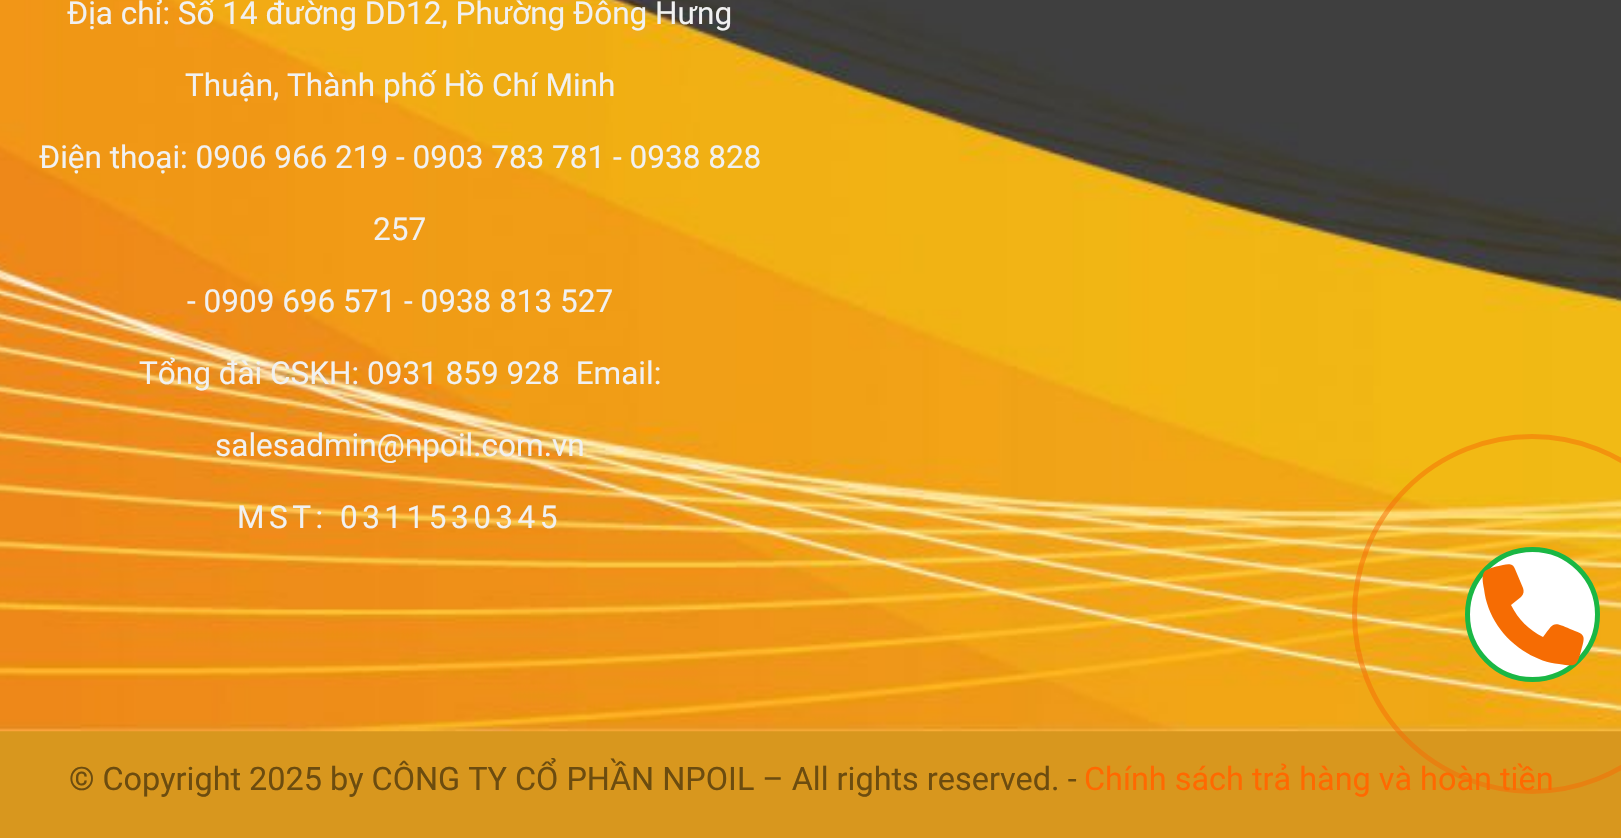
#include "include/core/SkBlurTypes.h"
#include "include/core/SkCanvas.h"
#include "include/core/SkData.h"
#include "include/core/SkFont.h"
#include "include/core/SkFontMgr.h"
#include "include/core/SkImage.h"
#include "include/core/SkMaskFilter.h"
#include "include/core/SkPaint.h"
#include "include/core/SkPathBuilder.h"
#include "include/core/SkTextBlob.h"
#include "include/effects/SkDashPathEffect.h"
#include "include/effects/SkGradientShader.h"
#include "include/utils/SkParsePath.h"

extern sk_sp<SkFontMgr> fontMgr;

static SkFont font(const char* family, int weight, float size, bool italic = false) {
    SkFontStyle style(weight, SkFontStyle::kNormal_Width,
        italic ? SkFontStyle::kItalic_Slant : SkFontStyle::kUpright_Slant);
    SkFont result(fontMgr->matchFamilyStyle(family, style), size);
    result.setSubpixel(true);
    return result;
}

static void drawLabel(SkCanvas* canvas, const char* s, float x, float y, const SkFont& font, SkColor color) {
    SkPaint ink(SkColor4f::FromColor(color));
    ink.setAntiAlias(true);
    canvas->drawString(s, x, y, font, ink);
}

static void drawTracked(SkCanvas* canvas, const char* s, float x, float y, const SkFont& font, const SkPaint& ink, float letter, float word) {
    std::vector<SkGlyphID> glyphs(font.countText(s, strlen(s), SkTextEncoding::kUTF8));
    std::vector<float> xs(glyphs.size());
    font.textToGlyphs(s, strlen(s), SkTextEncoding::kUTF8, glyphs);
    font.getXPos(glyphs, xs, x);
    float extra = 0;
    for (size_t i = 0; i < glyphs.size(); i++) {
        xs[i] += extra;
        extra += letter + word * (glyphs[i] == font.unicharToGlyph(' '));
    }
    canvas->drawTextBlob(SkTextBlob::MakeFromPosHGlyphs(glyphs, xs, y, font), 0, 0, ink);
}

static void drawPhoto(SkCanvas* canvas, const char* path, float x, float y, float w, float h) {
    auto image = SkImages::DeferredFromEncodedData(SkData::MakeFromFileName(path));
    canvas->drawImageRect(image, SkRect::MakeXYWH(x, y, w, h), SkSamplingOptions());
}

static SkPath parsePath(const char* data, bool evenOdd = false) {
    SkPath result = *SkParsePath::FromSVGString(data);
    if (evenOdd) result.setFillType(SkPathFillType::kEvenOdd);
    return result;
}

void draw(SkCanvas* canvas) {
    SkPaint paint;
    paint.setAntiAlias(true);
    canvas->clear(0xFFD8971E);
    drawPhoto(canvas, "assets/img1.png", 0, 0, 1621, 732);
    SkFont font1 = font("Roboto", 400, 31.5f);
    drawLabel(canvas, "Địa chỉ: Số 14 đường DD12, Phường Đông Hưng", 67, 24, font1, 0xFFF1F1F1);
    drawLabel(canvas, "Thuận, Thành phố Hồ Chí Minh", 185, 96, font1, 0xFFF1F1F1);
    drawLabel(canvas, "Điện thoại: 0906 966 219 - 0903 783 781 - 0938 828", 39, 168, font1, 0xFFF1F1F1);
    drawLabel(canvas, "257", 373, 240, font1, 0xFFF1F1F1);
    drawLabel(canvas, "- 0909 696 571 - 0938 813 527", 187, 312, font1, 0xFFF1F1F1);
    drawLabel(canvas, "Tổng đài CSKH: 0931 859 928 Email:", 139, 384, font1, 0xFFF1F1F1);
    drawLabel(canvas, "salesadmin@npoil.com.vn", 215, 456, font1, 0xFFF1F1F1);
    paint.setColor(0xFFF1F1F1);
    drawTracked(canvas, "MST: 0311530345", 237, 528, font1, paint, 4.5f, 0);
    SkFont font2 = font("Roboto", 400, 32.4f);
    drawLabel(canvas, "© Copyright 2025 by CÔNG TY CỔ PHẦN NPOIL – All rights reserved. -", 69, 790, font2, 0xFF6C4C0F);
    drawLabel(canvas, "Chính sách trả hàng và hoàn tiền", 1084, 790, font2, 0xFFFF6900);
    paint.setStroke(true);
    paint.setStrokeWidth(5);
    paint.setColor(0x80F66C03);
    canvas->drawCircle(1532, 614, 177.5f, paint);
    paint.setStroke(false);
    paint.setColor(0xFFFFFFFF);
    canvas->drawCircle(1532.5f, 614.5f, 65, paint);
    paint.setStroke(true);
    paint.setColor(0xFF1AB744);
    canvas->drawCircle(1532.5f, 614.5f, 65, paint);
    paint.setStroke(false);
    paint.setColor(0xFFF66C03);
    canvas->drawPath(parsePath("M1515 569C1513 563 1508 564 1503 565C1498 566 1489 568 1485 571C1481 575 1483 583 1484 589C1487 615 1503 639 1527 653C1537 659 1548 663 1559 664C1576 667 1577 666 1581 651C1586 634 1585 635 1570 629C1552 621 1554 623 1543 637C1529 630 1518 619 1511 605L1521 597C1524 594 1524 591 1523 588Z"), paint);
}
